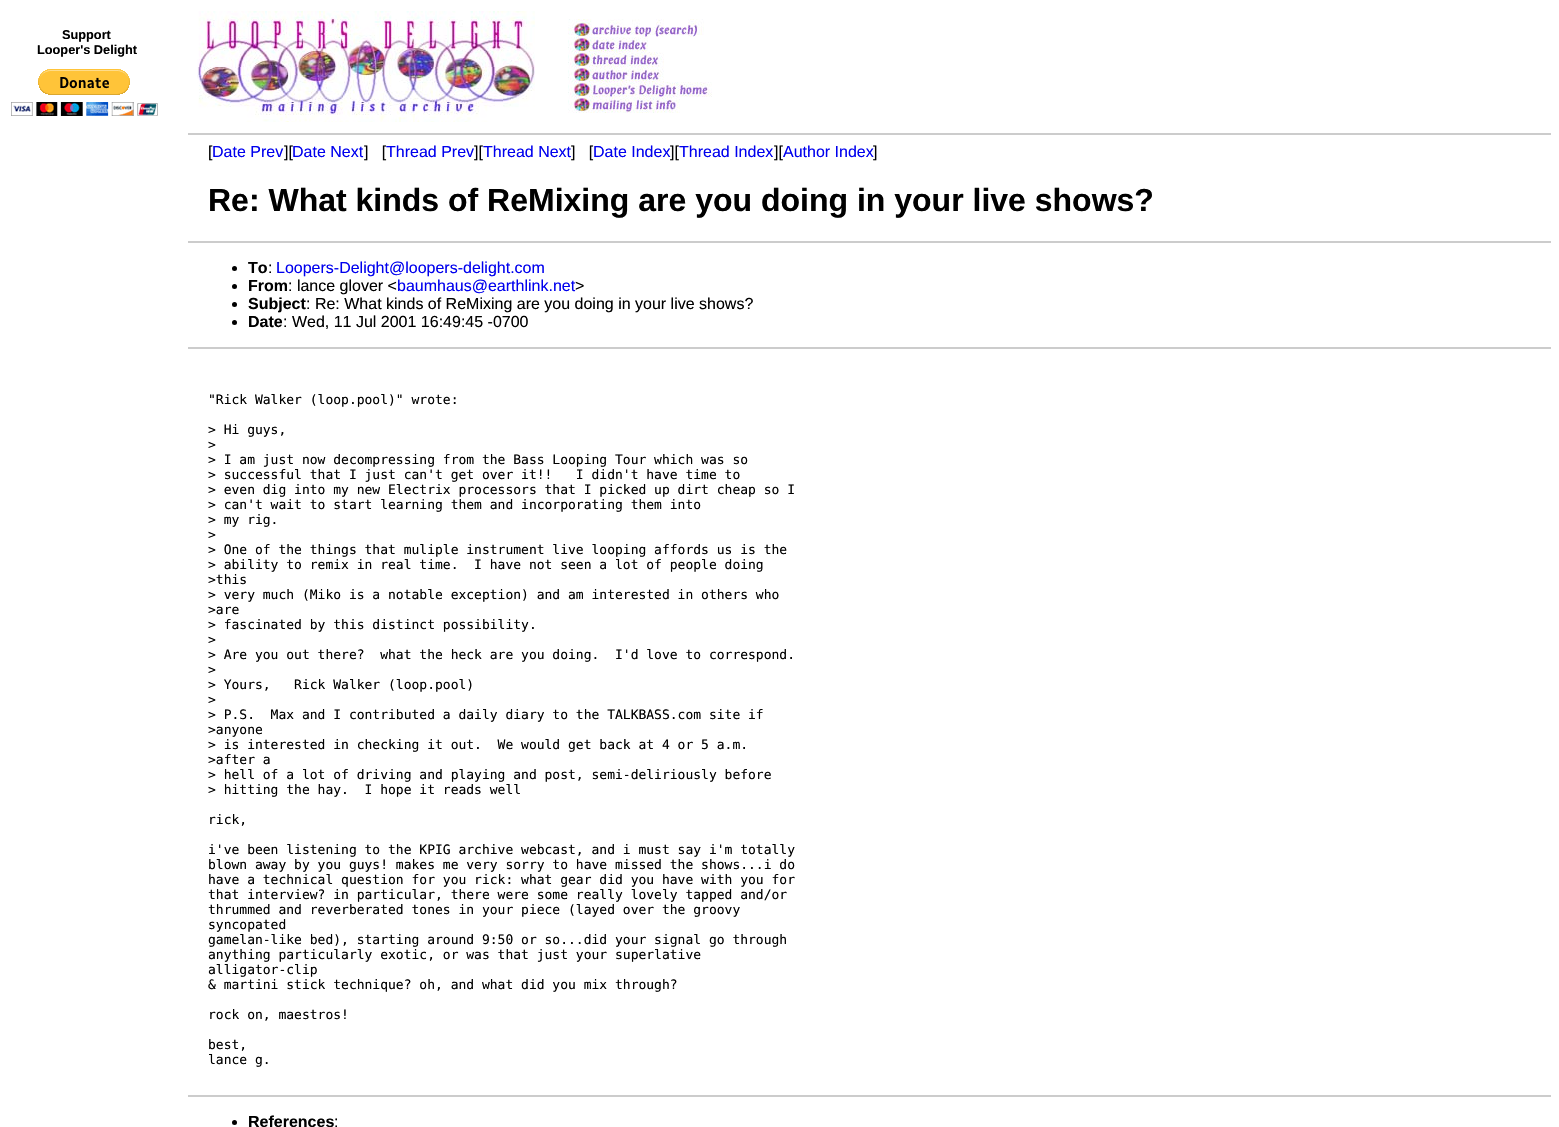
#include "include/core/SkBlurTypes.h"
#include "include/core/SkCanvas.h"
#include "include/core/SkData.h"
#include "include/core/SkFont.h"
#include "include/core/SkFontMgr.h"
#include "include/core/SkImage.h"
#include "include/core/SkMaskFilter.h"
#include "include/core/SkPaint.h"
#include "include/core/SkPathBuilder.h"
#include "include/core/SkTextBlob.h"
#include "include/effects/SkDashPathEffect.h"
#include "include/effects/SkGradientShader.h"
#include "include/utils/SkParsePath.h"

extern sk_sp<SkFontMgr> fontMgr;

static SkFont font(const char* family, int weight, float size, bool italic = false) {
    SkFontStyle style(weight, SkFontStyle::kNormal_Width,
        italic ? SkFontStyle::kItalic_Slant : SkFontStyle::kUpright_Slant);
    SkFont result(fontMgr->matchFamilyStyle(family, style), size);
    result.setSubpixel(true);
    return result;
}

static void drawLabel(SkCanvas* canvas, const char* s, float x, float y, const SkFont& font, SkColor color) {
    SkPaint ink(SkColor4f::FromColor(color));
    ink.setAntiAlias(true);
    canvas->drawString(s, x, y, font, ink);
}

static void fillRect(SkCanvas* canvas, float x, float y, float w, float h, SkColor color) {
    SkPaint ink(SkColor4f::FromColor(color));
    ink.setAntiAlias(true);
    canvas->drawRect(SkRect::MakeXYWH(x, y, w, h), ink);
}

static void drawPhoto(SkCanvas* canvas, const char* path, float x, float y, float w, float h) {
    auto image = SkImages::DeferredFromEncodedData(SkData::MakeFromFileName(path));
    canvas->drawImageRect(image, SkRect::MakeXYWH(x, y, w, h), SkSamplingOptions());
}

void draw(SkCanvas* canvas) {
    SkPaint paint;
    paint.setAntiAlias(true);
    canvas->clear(0xFFFFFFFF);
    SkFont font1 = font("Liberation Sans", 700, 12.75f);
    drawLabel(canvas, "Support", 62, 39, font1, 0xFF000000);
    drawLabel(canvas, "Looper's Delight", 37, 54, font1, 0xFF000000);
    drawPhoto(canvas, "assets/img1.png", 11, 69, 147, 47);
    drawPhoto(canvas, "assets/img2.png", 197, 11, 338, 111);
    drawPhoto(canvas, "assets/img3.png", 568, 19, 136, 18);
    drawPhoto(canvas, "assets/img4.png", 568, 37, 80, 15);
    drawPhoto(canvas, "assets/img5.png", 568, 52, 96, 15);
    drawPhoto(canvas, "assets/img6.png", 568, 67, 96, 15);
    drawPhoto(canvas, "assets/img7.png", 568, 82, 144, 15);
    drawPhoto(canvas, "assets/img8.png", 568, 97, 112, 16);
    fillRect(canvas, 188, 133, 1363, 2, 0xFFCCCCCC);
    SkFont font2 = font("Liberation Sans", 400, 16);
    drawLabel(canvas, "[", 208, 157, font2, 0xFF000000);
    drawLabel(canvas, "Date Prev", 212, 157, font2, 0xFF0000EE);
    drawLabel(canvas, "][", 284, 157, font2, 0xFF000000);
    drawLabel(canvas, "Date Next", 292, 157, font2, 0xFF0000EE);
    drawLabel(canvas, "]   [", 364, 157, font2, 0xFF000000);
    drawLabel(canvas, "Thread Prev", 386, 157, font2, 0xFF0000EE);
    drawLabel(canvas, "][", 474, 157, font2, 0xFF000000);
    drawLabel(canvas, "Thread Next", 483, 157, font2, 0xFF0000EE);
    drawLabel(canvas, "]   [", 571, 157, font2, 0xFF000000);
    drawLabel(canvas, "Date Index", 593, 157, font2, 0xFF0000EE);
    drawLabel(canvas, "][", 670, 157, font2, 0xFF000000);
    drawLabel(canvas, "Thread Index", 679, 157, font2, 0xFF0000EE);
    drawLabel(canvas, "][", 774, 157, font2, 0xFF000000);
    drawLabel(canvas, "Author Index", 783, 157, font2, 0xFF0000EE);
    drawLabel(canvas, "]", 873, 157, font2, 0xFF000000);
    SkFont font3 = font("Liberation Sans", 700, 32);
    drawLabel(canvas, "Re: What kinds of ReMixing are you doing in your live shows?", 208, 211, font3, 0xFF000000);
    fillRect(canvas, 188, 241, 1363, 2, 0xFFCCCCCC);
    paint.setColor(0xFF000000);
    canvas->drawCircle(234.5f, 268.5f, 2.5f, paint);
    SkFont font4 = font("Liberation Sans", 700, 16);
    drawLabel(canvas, "To", 248, 273, font4, 0xFF000000);
    drawLabel(canvas, ":", 268, 273, font2, 0xFF000000);
    drawLabel(canvas, "Loopers-Delight@loopers-delight.com", 276, 273, font2, 0xFF0000EE);
    canvas->drawCircle(234.5f, 286.5f, 2.5f, paint);
    drawLabel(canvas, "From", 248, 291, font4, 0xFF000000);
    drawLabel(canvas, ": lance glover <", 288, 291, font2, 0xFF000000);
    drawLabel(canvas, "baumhaus@earthlink.net", 397, 291, font2, 0xFF0000EE);
    drawLabel(canvas, ">", 575, 291, font2, 0xFF000000);
    canvas->drawCircle(234.5f, 304.5f, 2.5f, paint);
    drawLabel(canvas, "Subject", 248, 309, font4, 0xFF000000);
    drawLabel(canvas, ": Re: What kinds of ReMixing are you doing in your live shows?", 306, 309, font2, 0xFF000000);
    canvas->drawCircle(234.5f, 322.5f, 2.5f, paint);
    drawLabel(canvas, "Date", 248, 327, font4, 0xFF000000);
    drawLabel(canvas, ": Wed, 11 Jul 2001 16:49:45 -0700", 283, 327, font2, 0xFF000000);
    fillRect(canvas, 188, 347, 1363, 2, 0xFFCCCCCC);
    SkFont font5 = font("DejaVu Sans Mono", 400, 13);
    drawLabel(canvas, "\"Rick Walker (loop.pool)\" wrote:", 208, 404, font5, 0xFF000000);
    drawLabel(canvas, "> Hi guys,", 208, 434, font5, 0xFF000000);
    drawLabel(canvas, ">", 208, 449, font5, 0xFF000000);
    drawLabel(canvas, "> I am just now decompressing from the Bass Looping Tour which was so", 208, 464, font5, 0xFF000000);
    drawLabel(canvas, "> successful that I just can't get over it!!   I didn't have time to", 208, 479, font5, 0xFF000000);
    drawLabel(canvas, "> even dig into my new Electrix processors that I picked up dirt cheap so I", 208, 494, font5, 0xFF000000);
    drawLabel(canvas, "> can't wait to start learning them and incorporating them into", 208, 509, font5, 0xFF000000);
    drawLabel(canvas, "> my rig.", 208, 524, font5, 0xFF000000);
    drawLabel(canvas, ">", 208, 539, font5, 0xFF000000);
    drawLabel(canvas, "> One of the things that muliple instrument live looping affords us is the", 208, 554, font5, 0xFF000000);
    drawLabel(canvas, "> ability to remix in real time.  I have not seen a lot of people doing", 208, 569, font5, 0xFF000000);
    drawLabel(canvas, ">this", 208, 584, font5, 0xFF000000);
    drawLabel(canvas, "> very much (Miko is a notable exception) and am interested in others who", 208, 599, font5, 0xFF000000);
    drawLabel(canvas, ">are", 208, 614, font5, 0xFF000000);
    drawLabel(canvas, "> fascinated by this distinct possibility.", 208, 629, font5, 0xFF000000);
    drawLabel(canvas, ">", 208, 644, font5, 0xFF000000);
    drawLabel(canvas, "> Are you out there?  what the heck are you doing.  I'd love to correspond.", 208, 659, font5, 0xFF000000);
    drawLabel(canvas, ">", 208, 674, font5, 0xFF000000);
    drawLabel(canvas, "> Yours,   Rick Walker (loop.pool)", 208, 689, font5, 0xFF000000);
    drawLabel(canvas, ">", 208, 704, font5, 0xFF000000);
    drawLabel(canvas, "> P.S.  Max and I contributed a daily diary to the TALKBASS.com site if", 208, 719, font5, 0xFF000000);
    drawLabel(canvas, ">anyone", 208, 734, font5, 0xFF000000);
    drawLabel(canvas, "> is interested in checking it out.  We would get back at 4 or 5 a.m.", 208, 749, font5, 0xFF000000);
    drawLabel(canvas, ">after a", 208, 764, font5, 0xFF000000);
    drawLabel(canvas, "> hell of a lot of driving and playing and post, semi-deliriously before", 208, 779, font5, 0xFF000000);
    drawLabel(canvas, "> hitting the hay.  I hope it reads well", 208, 794, font5, 0xFF000000);
    drawLabel(canvas, "rick,", 208, 824, font5, 0xFF000000);
    drawLabel(canvas, "i've been listening to the KPIG archive webcast, and i must say i'm totally", 208, 854, font5, 0xFF000000);
    drawLabel(canvas, "blown away by you guys! makes me very sorry to have missed the shows...i do", 208, 869, font5, 0xFF000000);
    drawLabel(canvas, "have a technical question for you rick: what gear did you have with you for", 208, 884, font5, 0xFF000000);
    drawLabel(canvas, "that interview? in particular, there were some really lovely tapped and/or", 208, 899, font5, 0xFF000000);
    drawLabel(canvas, "thrummed and reverberated tones in your piece (layed over the groovy", 208, 914, font5, 0xFF000000);
    drawLabel(canvas, "syncopated", 208, 929, font5, 0xFF000000);
    drawLabel(canvas, "gamelan-like bed), starting around 9:50 or so...did your signal go through", 208, 944, font5, 0xFF000000);
    drawLabel(canvas, "anything particularly exotic, or was that just your superlative", 208, 959, font5, 0xFF000000);
    drawLabel(canvas, "alligator-clip", 208, 974, font5, 0xFF000000);
    drawLabel(canvas, "& martini stick technique? oh, and what did you mix through?", 208, 989, font5, 0xFF000000);
    drawLabel(canvas, "rock on, maestros!", 208, 1019, font5, 0xFF000000);
    drawLabel(canvas, "best,", 208, 1049, font5, 0xFF000000);
    drawLabel(canvas, "lance g.", 208, 1064, font5, 0xFF000000);
    fillRect(canvas, 188, 1095, 1363, 2, 0xFFCCCCCC);
    canvas->drawCircle(234.5f, 1122.5f, 2.5f, paint);
    drawLabel(canvas, "References", 248, 1127, font4, 0xFF000000);
    drawLabel(canvas, ":", 334, 1127, font2, 0xFF000000);
}
